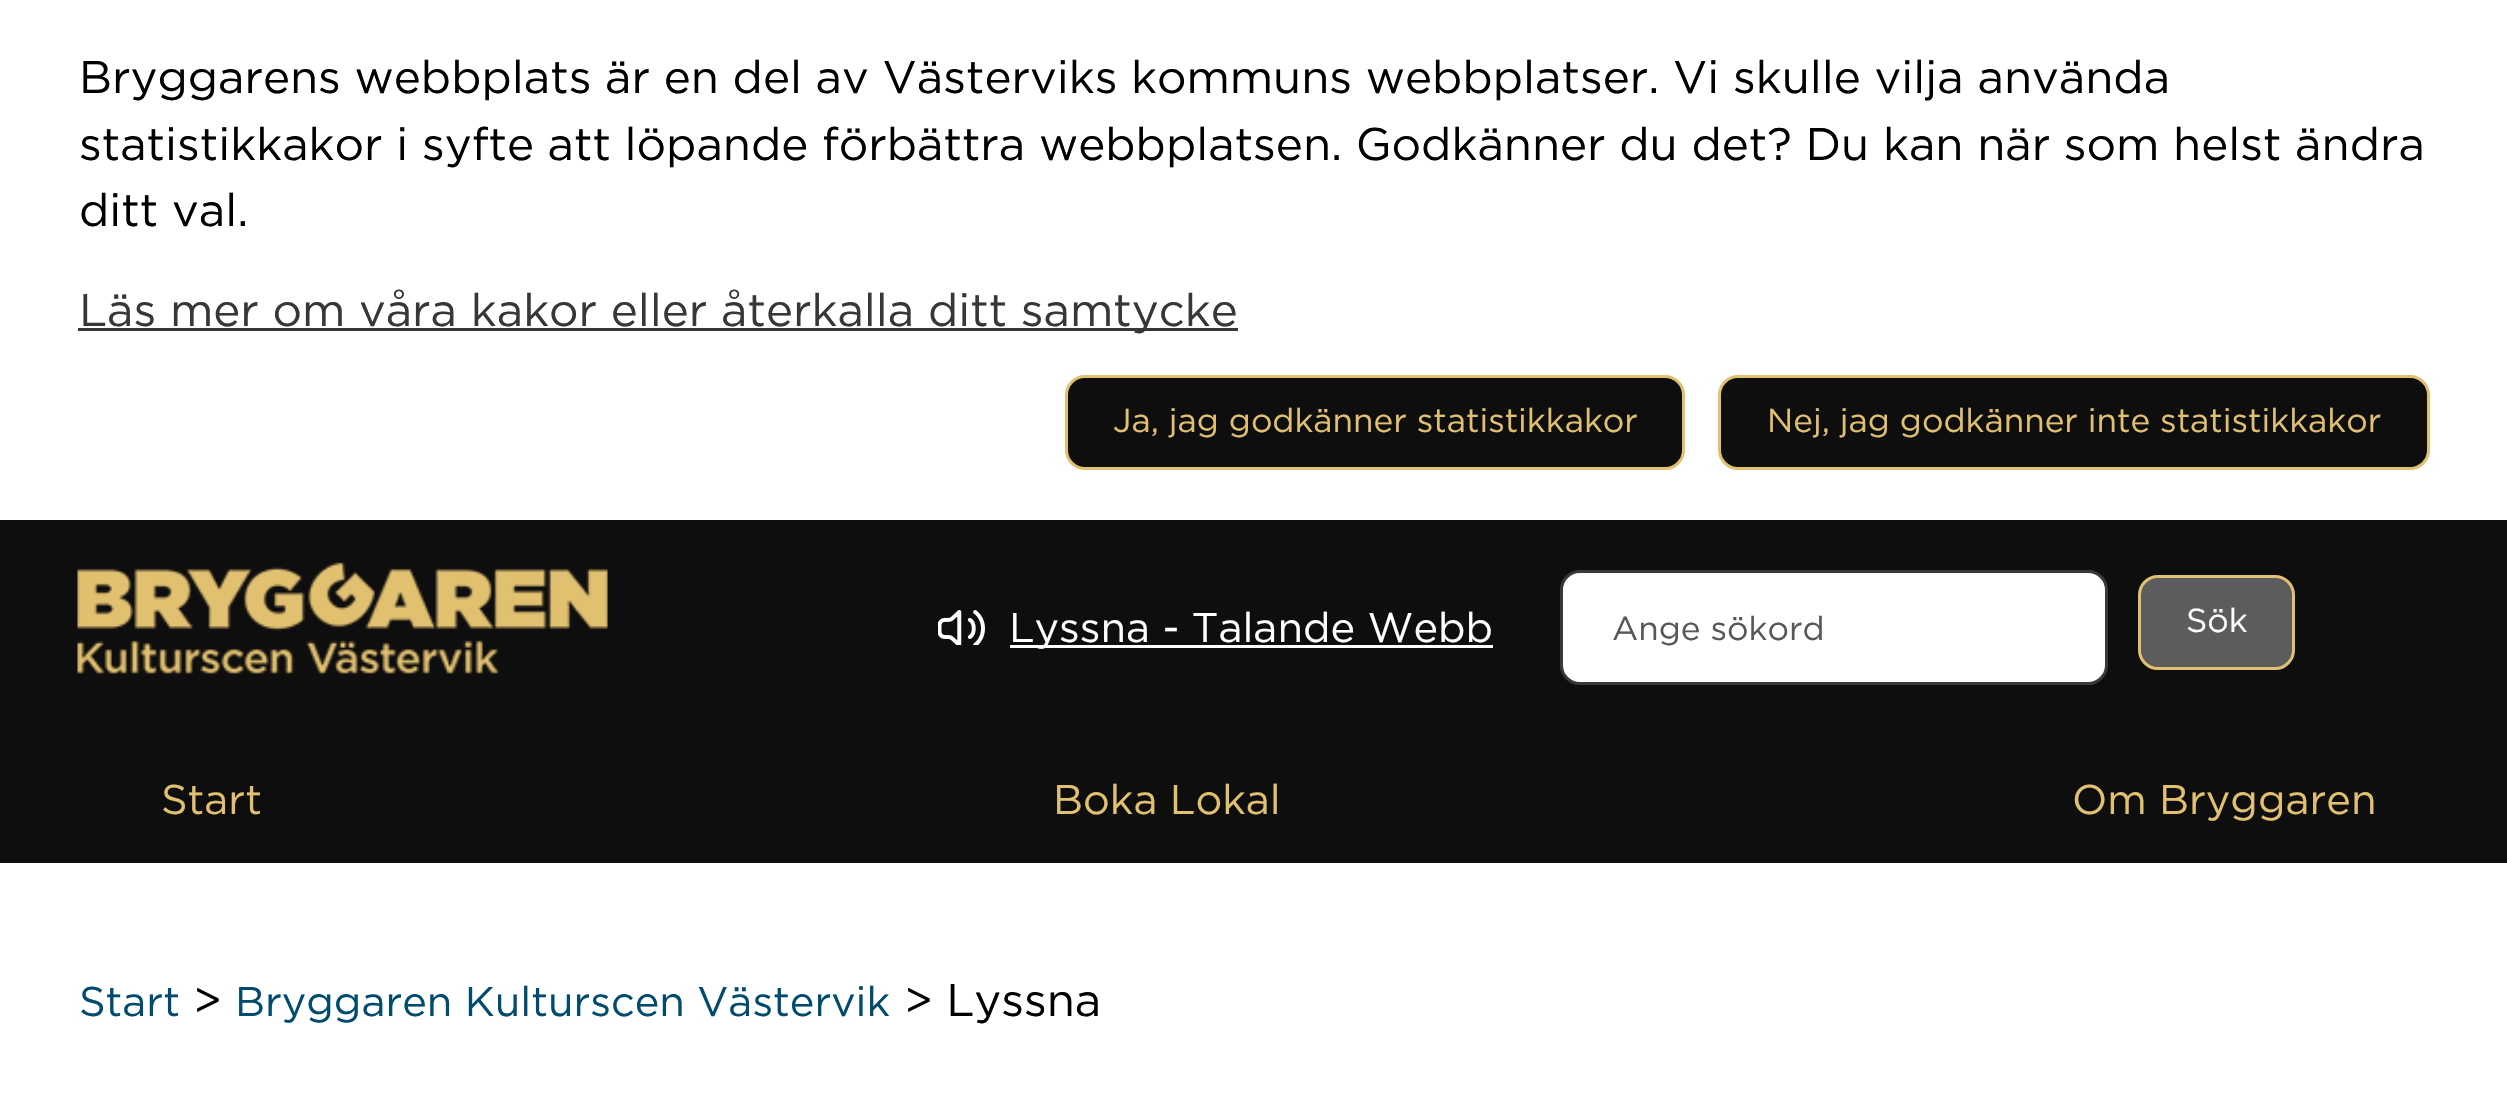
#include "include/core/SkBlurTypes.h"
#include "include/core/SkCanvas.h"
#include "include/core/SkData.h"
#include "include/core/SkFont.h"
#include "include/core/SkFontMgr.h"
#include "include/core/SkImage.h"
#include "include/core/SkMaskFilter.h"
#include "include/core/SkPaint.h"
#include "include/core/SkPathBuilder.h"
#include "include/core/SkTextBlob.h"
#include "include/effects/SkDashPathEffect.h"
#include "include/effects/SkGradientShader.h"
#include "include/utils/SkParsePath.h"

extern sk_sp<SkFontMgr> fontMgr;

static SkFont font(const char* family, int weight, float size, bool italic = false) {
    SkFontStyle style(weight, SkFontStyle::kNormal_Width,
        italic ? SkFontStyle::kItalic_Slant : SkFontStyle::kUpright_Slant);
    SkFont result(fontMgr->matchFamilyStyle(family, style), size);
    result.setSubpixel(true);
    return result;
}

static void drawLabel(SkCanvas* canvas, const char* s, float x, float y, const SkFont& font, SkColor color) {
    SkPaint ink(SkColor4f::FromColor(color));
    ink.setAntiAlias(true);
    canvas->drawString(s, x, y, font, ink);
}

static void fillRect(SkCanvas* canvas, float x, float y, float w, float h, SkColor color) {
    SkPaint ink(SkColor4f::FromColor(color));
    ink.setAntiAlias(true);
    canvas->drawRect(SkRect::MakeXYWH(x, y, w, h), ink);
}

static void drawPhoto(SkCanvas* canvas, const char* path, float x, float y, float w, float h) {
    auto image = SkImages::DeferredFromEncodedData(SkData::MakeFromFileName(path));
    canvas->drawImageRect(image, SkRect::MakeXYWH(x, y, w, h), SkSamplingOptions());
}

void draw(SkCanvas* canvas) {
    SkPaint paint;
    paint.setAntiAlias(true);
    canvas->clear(0xFFFFFFFF);
    SkFont font1 = font("Gotham", 400, 45.65f);
    drawLabel(canvas, "Bryggarens webbplats är en del av Västerviks kommuns webbplatser. Vi skulle vilja använda", 79, 93, font1, 0xFF000000);
    drawLabel(canvas, "statistikkakor i syfte att löpande förbättra webbplatsen. Godkänner du det? Du kan när som helst ändra", 79, 160, font1, 0xFF000000);
    drawLabel(canvas, "ditt val.", 79, 226, font1, 0xFF000000);
    fillRect(canvas, 78, 328, 1160, 3, 0xFF373737);
    drawLabel(canvas, "Läs mer om våra kakor eller återkalla ditt samtycke", 79, 326, font1, 0xFF373737);
    paint.setColor(0xFF0E0E0E);
    canvas->drawRoundRect(SkRect::MakeXYWH(1066.5f, 376.5f, 617, 92), 18.5f, 18.5f, paint);
    paint.setStroke(true);
    paint.setStrokeWidth(3);
    paint.setColor(0xFFE1C070);
    canvas->drawRoundRect(SkRect::MakeXYWH(1066.5f, 376.5f, 617, 92), 18.5f, 18.5f, paint);
    SkFont font2 = font("Gotham", 400, 33.25f);
    drawLabel(canvas, "Ja, jag godkänner statistikkakor", 1113, 432, font2, 0xFFE1C070);
    paint.setStroke(false);
    paint.setColor(0xFF0E0E0E);
    canvas->drawRoundRect(SkRect::MakeXYWH(1719.5f, 376.5f, 709, 92), 18.5f, 18.5f, paint);
    paint.setStroke(true);
    paint.setColor(0xFFE1C070);
    canvas->drawRoundRect(SkRect::MakeXYWH(1719.5f, 376.5f, 709, 92), 18.5f, 18.5f, paint);
    drawLabel(canvas, "Nej, jag godkänner inte statistikkakor", 1767, 432, font2, 0xFFE1C070);
    fillRect(canvas, 0, 520, 2507, 343, 0xFF0E0E0E);
    drawPhoto(canvas, "assets/img1.png", 77, 562, 531, 112);
    drawPhoto(canvas, "assets/img2.png", 938, 610, 47, 35);
    fillRect(canvas, 1010, 645, 483, 3, 0xFFFFFFFF);
    SkFont font3 = font("Gotham", 400, 41.5f);
    drawLabel(canvas, "Lyssna - Talande Webb", 1009, 642, font3, 0xFFFFFFFF);
    paint.setStroke(false);
    paint.setColor(0xFFFFFFFF);
    canvas->drawRoundRect(SkRect::MakeXYWH(1561.5f, 571.5f, 545, 112), 18.5f, 18.5f, paint);
    paint.setStroke(true);
    paint.setColor(0xFF393939);
    canvas->drawRoundRect(SkRect::MakeXYWH(1561.5f, 571.5f, 545, 112), 18.5f, 18.5f, paint);
    drawLabel(canvas, "Ange sökord", 1612, 640, font2, 0xFF575757);
    paint.setStroke(false);
    paint.setColor(0xFF5C5C5C);
    canvas->drawRoundRect(SkRect::MakeXYWH(2139.5f, 576.5f, 154, 92), 18.5f, 18.5f, paint);
    paint.setStroke(true);
    paint.setColor(0xFFE1C070);
    canvas->drawRoundRect(SkRect::MakeXYWH(2139.5f, 576.5f, 154, 92), 18.5f, 18.5f, paint);
    drawLabel(canvas, "Sök", 2186, 632, font2, 0xFFFFFFFF);
    drawLabel(canvas, "Start", 161, 814, font3, 0xFFE1C070);
    drawLabel(canvas, "Boka Lokal", 1053, 814, font3, 0xFFE1C070);
    drawLabel(canvas, "Om Bryggaren", 2072, 814, font3, 0xFFE1C070);
    drawLabel(canvas, "Start", 79, 1016, font3, 0xFF004B6E);
    drawLabel(canvas, ">", 193, 1016, font1, 0xFF000000);
    drawLabel(canvas, "Bryggaren Kulturscen Västervik", 235, 1016, font3, 0xFF004B6E);
    drawLabel(canvas, "> Lyssna", 904, 1016, font1, 0xFF000000);
}
